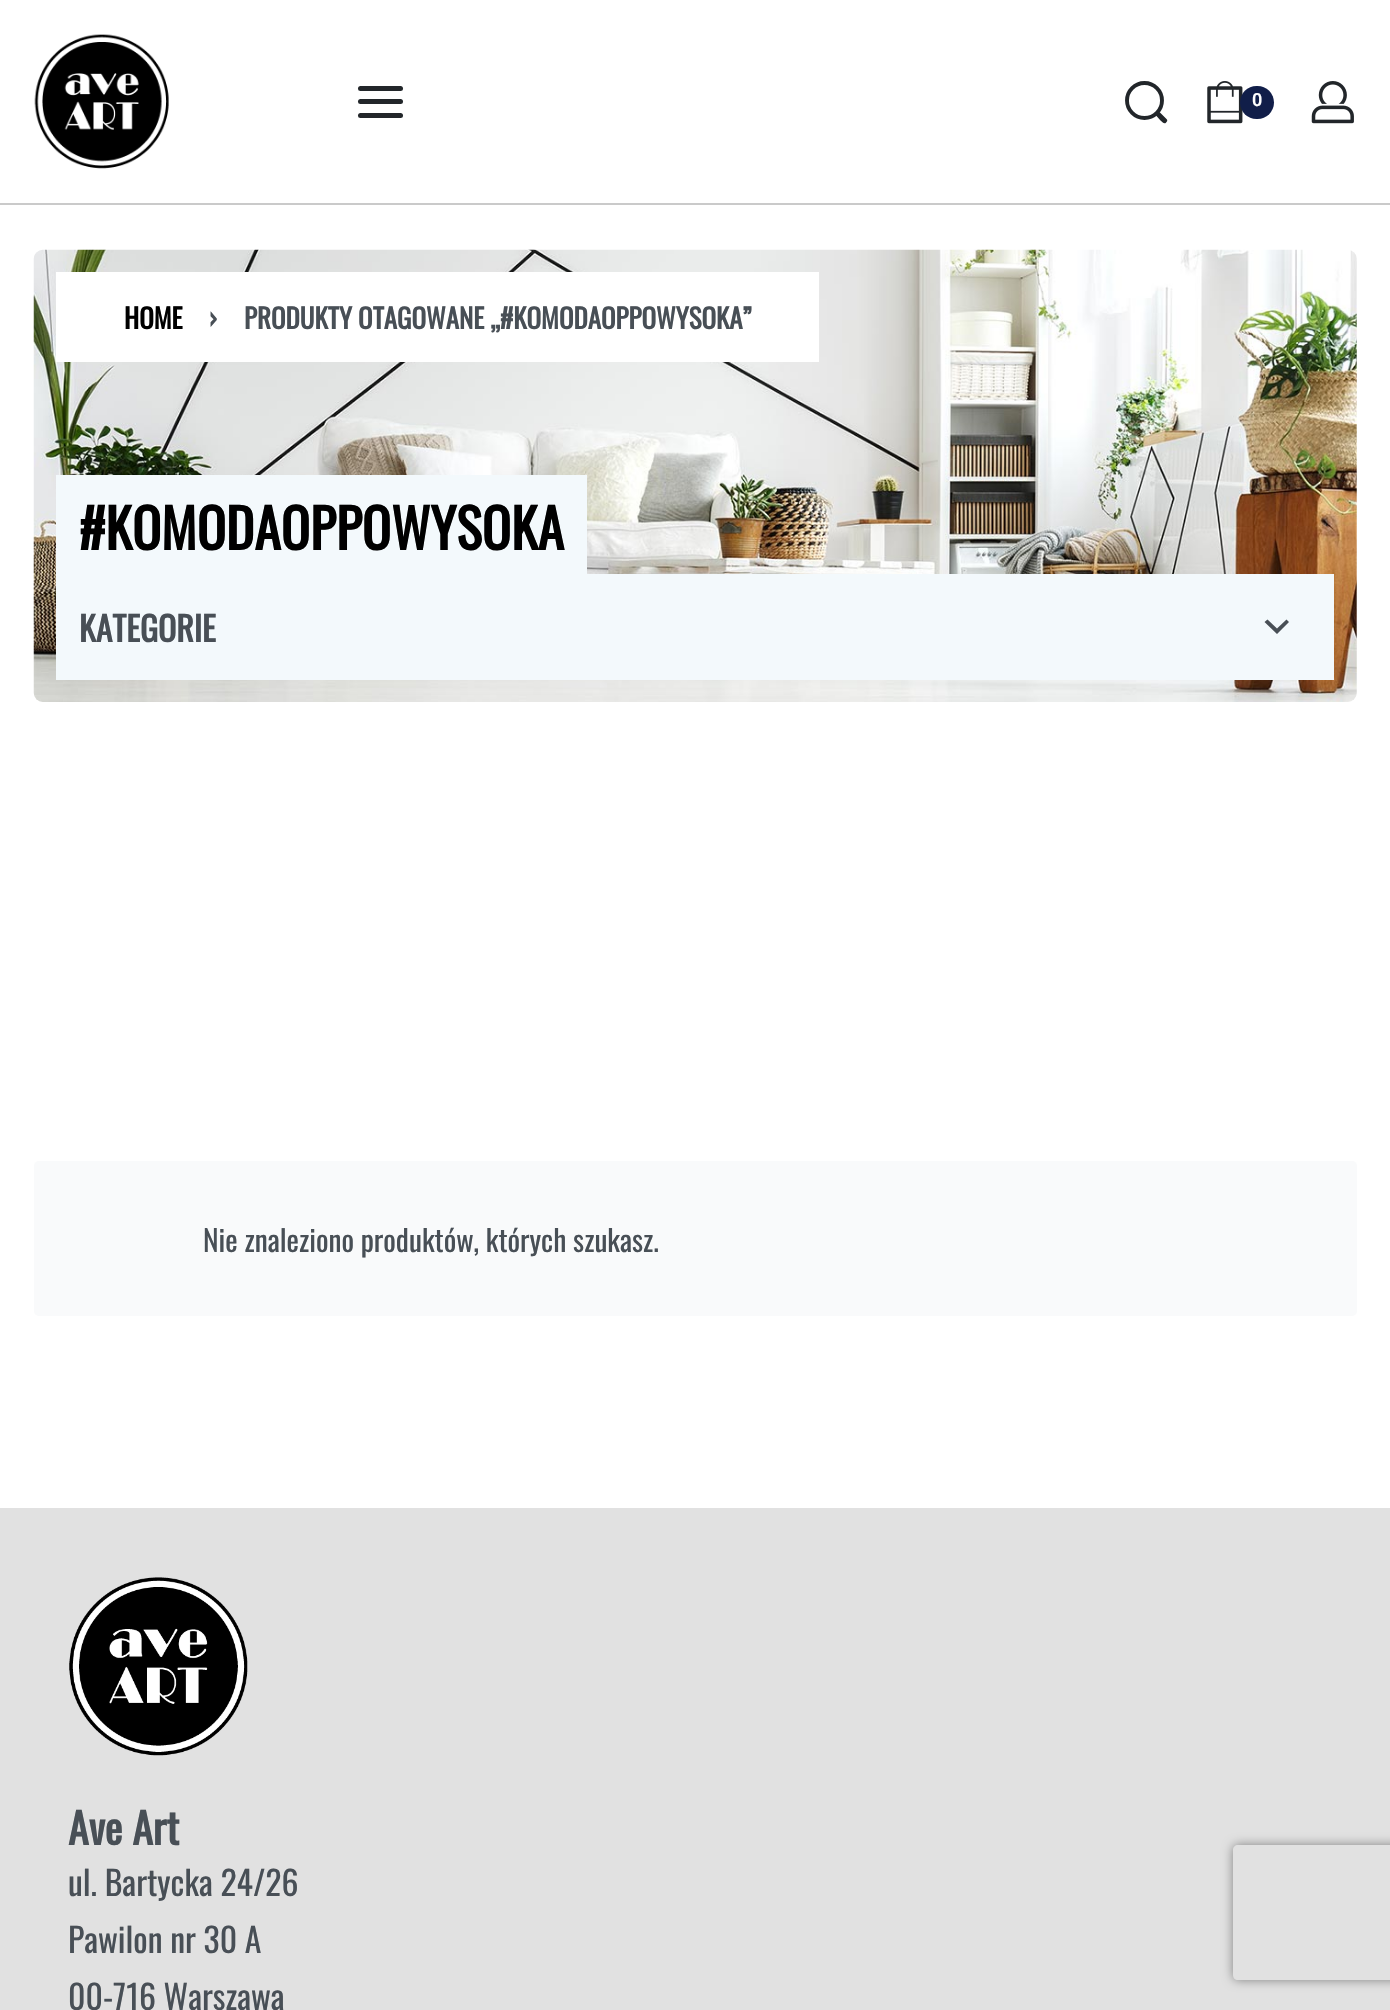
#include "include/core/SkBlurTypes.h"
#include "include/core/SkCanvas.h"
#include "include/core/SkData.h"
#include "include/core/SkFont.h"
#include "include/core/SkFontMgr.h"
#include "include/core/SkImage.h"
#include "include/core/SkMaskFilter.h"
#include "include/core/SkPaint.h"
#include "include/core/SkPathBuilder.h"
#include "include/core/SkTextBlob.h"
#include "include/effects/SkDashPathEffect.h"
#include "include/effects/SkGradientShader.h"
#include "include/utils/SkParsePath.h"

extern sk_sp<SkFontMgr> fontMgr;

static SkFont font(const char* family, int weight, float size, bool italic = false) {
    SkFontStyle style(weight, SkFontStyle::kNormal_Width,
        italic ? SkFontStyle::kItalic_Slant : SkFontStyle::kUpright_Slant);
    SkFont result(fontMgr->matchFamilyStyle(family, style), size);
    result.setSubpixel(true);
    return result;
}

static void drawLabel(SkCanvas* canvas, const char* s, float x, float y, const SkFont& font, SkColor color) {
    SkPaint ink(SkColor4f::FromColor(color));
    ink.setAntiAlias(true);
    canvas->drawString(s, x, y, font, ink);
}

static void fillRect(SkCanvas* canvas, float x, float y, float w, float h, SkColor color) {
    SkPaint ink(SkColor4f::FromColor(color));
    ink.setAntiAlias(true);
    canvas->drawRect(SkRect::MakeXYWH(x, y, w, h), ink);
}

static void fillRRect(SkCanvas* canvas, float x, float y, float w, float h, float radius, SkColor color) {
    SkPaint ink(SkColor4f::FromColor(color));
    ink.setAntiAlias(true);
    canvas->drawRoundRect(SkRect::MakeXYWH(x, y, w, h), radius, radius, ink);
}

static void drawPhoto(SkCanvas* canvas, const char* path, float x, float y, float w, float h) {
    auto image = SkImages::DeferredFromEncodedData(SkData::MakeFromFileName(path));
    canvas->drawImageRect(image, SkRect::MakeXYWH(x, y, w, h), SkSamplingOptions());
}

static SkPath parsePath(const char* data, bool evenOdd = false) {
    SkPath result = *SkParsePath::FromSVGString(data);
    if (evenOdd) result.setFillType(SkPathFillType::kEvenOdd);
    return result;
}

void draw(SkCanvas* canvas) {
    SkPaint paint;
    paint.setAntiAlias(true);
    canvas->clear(0xFFFFFFFF);
    fillRect(canvas, 0, 203, 1390, 2, 0xFFCACACA);
    drawPhoto(canvas, "assets/img1.png", 34, 34, 135, 135);
    fillRRect(canvas, 358, 86, 45, 5, 2.5f, 0xFF22262A);
    fillRRect(canvas, 358, 99, 45, 5, 2.5f, 0xFF22262A);
    fillRRect(canvas, 358, 113, 45, 5, 2.5f, 0xFF22262A);
    paint.setStroke(true);
    paint.setStrokeWidth(3.9f);
    paint.setColor(0xFF22262A);
    canvas->drawCircle(1144.5f, 100.5f, 17.5f, paint);
    paint.setStroke(false);
    canvas->drawPath(parsePath("M1160 112.5L1166.5 119C1167.5 120 1167.5 121 1166.5 122C1165 125 1162 122 1160.5 120.5L1156.5 116C1154 113.5 1158 110 1160 112.5Z"), paint);
    drawPhoto(canvas, "assets/img2.png", 1207, 81, 36, 43);
    fillRRect(canvas, 1240, 86, 34, 33, 16.5f, 0xFF111E49);
    SkFont font1 = font("Roboto", 600, 18);
    drawLabel(canvas, "0", 1252, 106, font1, 0xFFFFFFFF);
    drawPhoto(canvas, "assets/img3.png", 1311, 81, 43, 43);
    drawPhoto(canvas, "assets/img4.png", 33, 249, 1324, 453);
    fillRect(canvas, 56, 272, 763, 90, 0xFFFFFFFF);
    SkFont font2 = font("Oswald", 700, 27);
    drawLabel(canvas, "HOME", 124, 329, font2, 0xFF000000);
    drawLabel(canvas, "›", 209, 329, font2, 0xFF484F56);
    drawLabel(canvas, "PRODUKTY OTAGOWANE „#KOMODAOPPOWYSOKA”", 244, 329, font2, 0xFF484F56);
    fillRect(canvas, 56, 475, 531, 99, 0xFFF3F9FC);
    SkFont font3 = font("Oswald", 700, 54);
    drawLabel(canvas, "#KOMODAOPPOWYSOKA", 79, 550, font3, 0xFF000000);
    fillRect(canvas, 56, 574, 1278, 106, 0xFFF3F9FC);
    SkFont font4 = font("Oswald", 700, 33.75f);
    drawLabel(canvas, "KATEGORIE", 79, 642, font4, 0xFF484F56);
    paint.setColor(0xFF484F56);
    canvas->drawPath(parsePath("M1264.5 622L1277 634L1289 622L1286.5 619.5L1277 628.5L1267.5 619.5Z", true), paint);
    fillRRect(canvas, 34, 1161, 1323, 155, 5, 0xFFF9FAFB);
    SkFont font5 = font("Oswald", 400, 29.5f);
    drawLabel(canvas, "Nie znaleziono produktów, których szukasz.", 203, 1252, font5, 0xFF484F56);
    fillRect(canvas, 0, 1508, 1390, 502, 0xFFE1E1E1);
    drawPhoto(canvas, "assets/img5.png", 69, 1577, 179, 179);
    SkFont font6 = font("Oswald", 700, 42);
    drawLabel(canvas, "Ave Art", 68, 1845, font6, 0xFF484F56);
    SkFont font7 = font("Oswald", 400, 33.75f);
    drawLabel(canvas, "ul. Bartycka 24/26", 68, 1896, font7, 0xFF484F56);
    drawLabel(canvas, "Pawilon nr 30 A", 68, 1953, font7, 0xFF484F56);
    drawLabel(canvas, "00-716 Warszawa", 68, 2010, font7, 0xFF484F56);
    canvas->save();
    canvas->clipPath(parsePath("M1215 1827H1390V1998H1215ZM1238 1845H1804C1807 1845 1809 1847 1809 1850V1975C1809 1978 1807 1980 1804 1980H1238C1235 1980 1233 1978 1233 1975V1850C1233 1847 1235 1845 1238 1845Z", true), true);
    paint.setColor(0xFF808080);
    paint.setMaskFilter(SkMaskFilter::MakeBlur(kNormal_SkBlurStyle, 5.5f));
    canvas->drawRoundRect(SkRect::MakeXYWH(1233, 1845, 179, 135), 5, 5, paint);
    paint.setMaskFilter(nullptr);
    canvas->restore();
}
